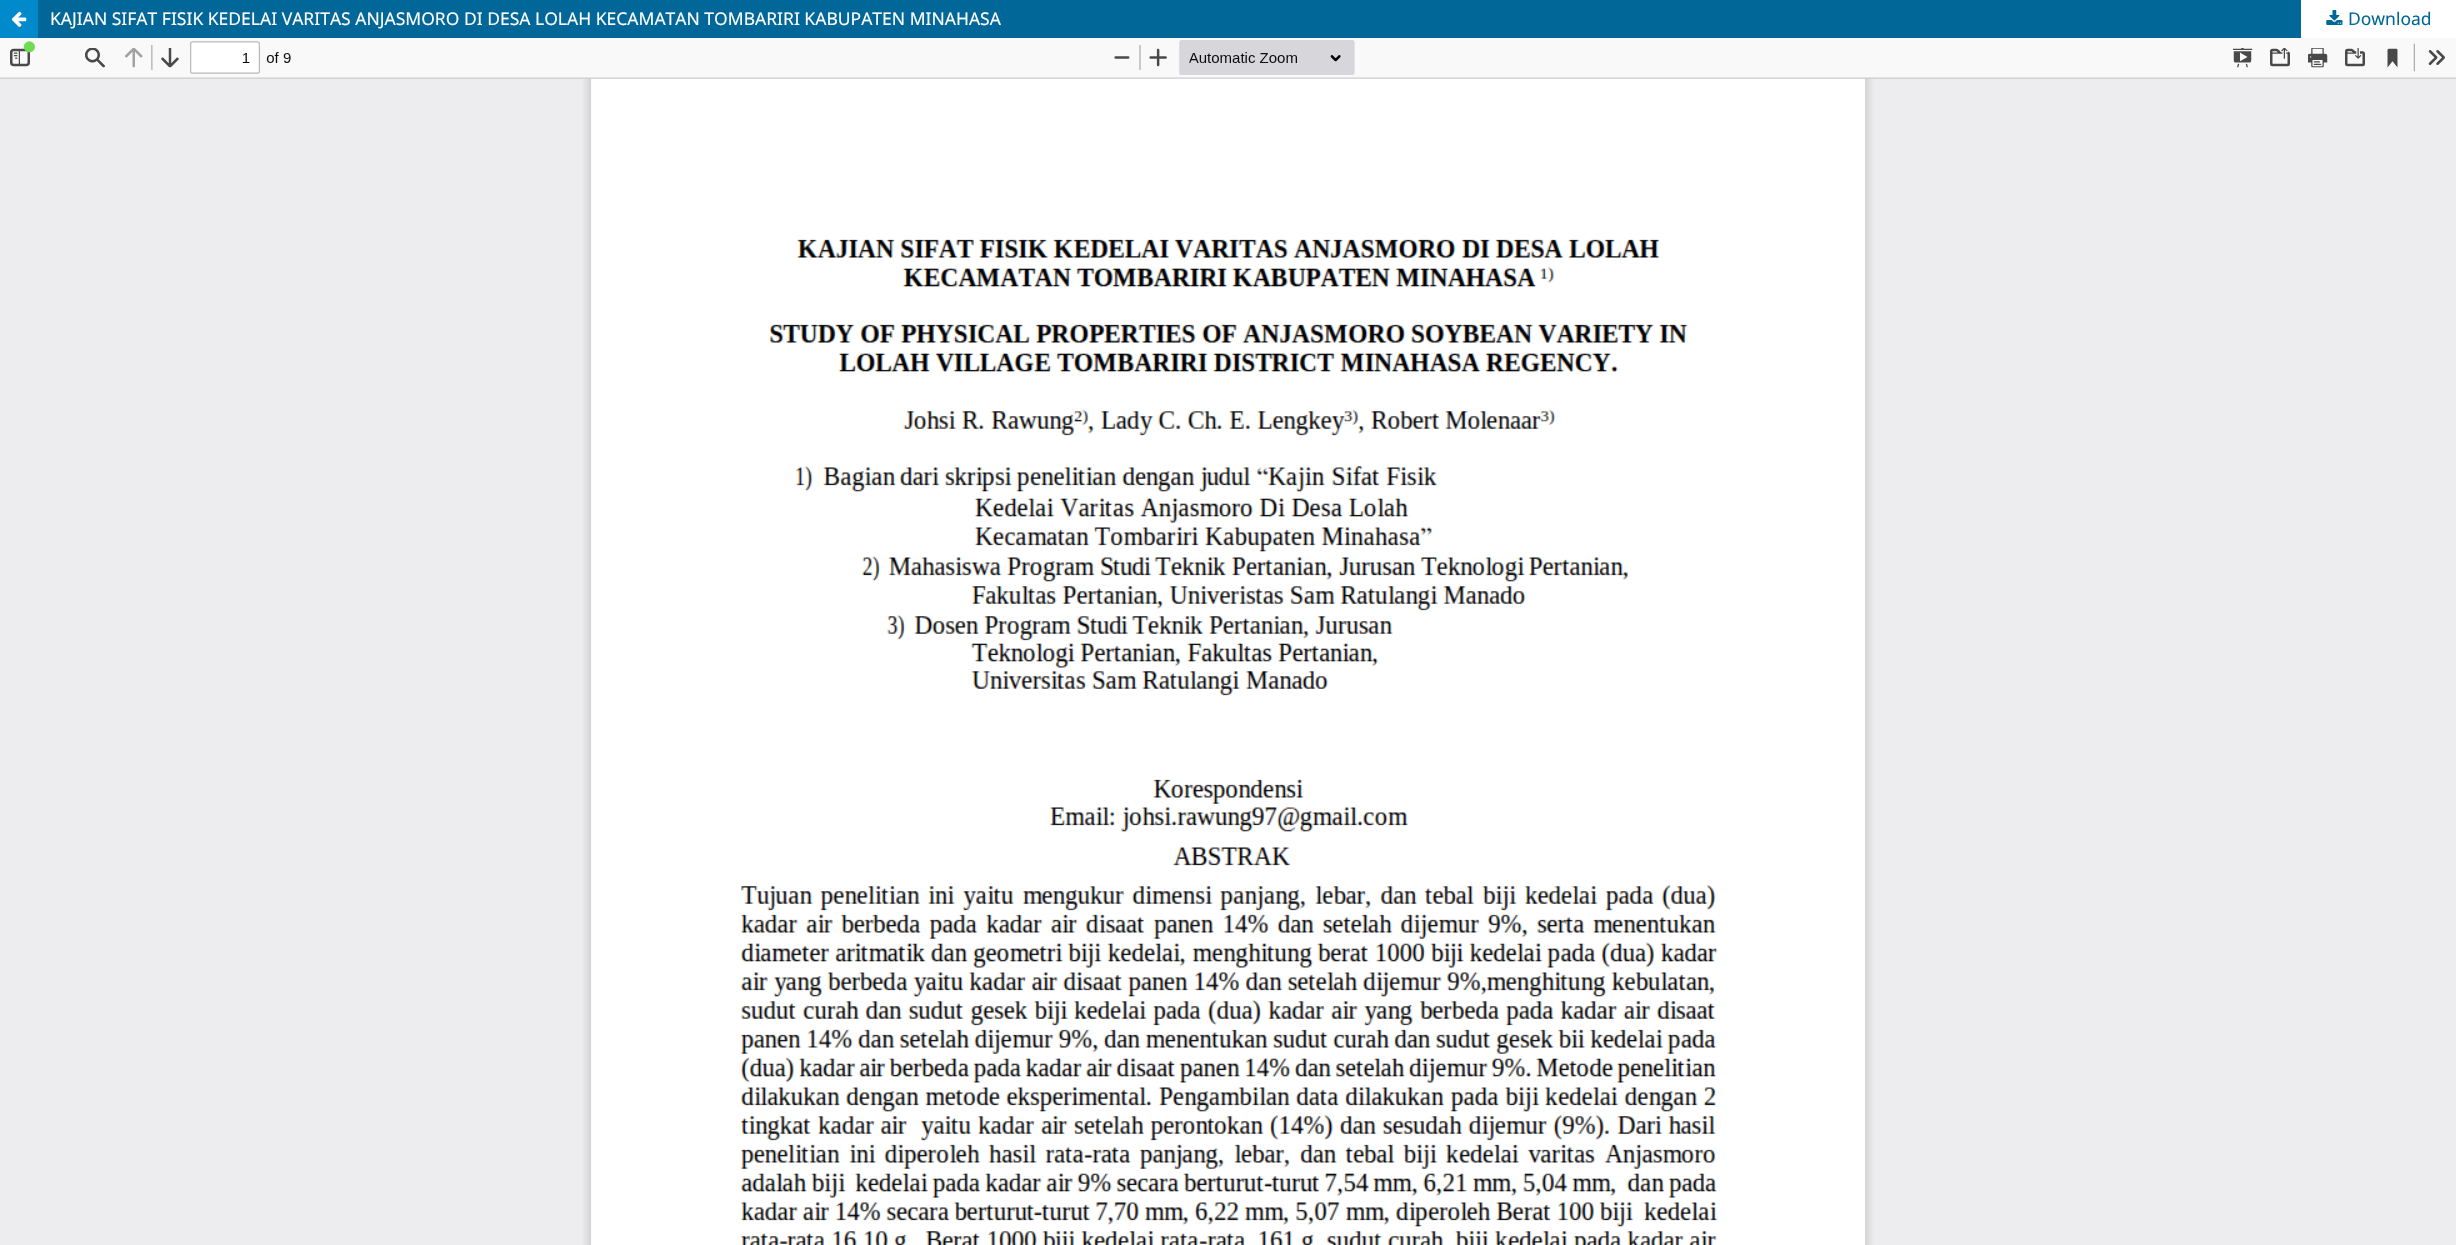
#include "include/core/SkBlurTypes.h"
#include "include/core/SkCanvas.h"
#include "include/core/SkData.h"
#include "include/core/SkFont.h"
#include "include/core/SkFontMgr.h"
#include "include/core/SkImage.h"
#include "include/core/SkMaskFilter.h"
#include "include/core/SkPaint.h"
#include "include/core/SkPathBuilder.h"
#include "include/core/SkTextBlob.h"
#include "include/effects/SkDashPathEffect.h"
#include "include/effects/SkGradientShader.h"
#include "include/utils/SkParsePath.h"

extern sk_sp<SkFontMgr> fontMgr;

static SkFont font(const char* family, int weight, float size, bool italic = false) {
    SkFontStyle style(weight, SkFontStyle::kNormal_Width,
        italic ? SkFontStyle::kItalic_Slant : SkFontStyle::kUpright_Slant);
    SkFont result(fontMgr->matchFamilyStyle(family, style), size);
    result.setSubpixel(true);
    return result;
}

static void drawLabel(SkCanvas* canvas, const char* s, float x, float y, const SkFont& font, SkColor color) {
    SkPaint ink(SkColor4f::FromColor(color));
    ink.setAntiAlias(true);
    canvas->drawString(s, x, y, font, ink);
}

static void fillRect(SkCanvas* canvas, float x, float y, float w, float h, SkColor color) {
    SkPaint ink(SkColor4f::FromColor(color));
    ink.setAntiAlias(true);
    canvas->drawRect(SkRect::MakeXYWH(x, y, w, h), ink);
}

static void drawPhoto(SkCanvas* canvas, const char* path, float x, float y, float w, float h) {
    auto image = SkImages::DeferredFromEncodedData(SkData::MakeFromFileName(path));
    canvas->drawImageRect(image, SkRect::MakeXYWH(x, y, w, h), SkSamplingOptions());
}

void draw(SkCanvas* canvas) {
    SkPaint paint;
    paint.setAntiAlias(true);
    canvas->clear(0xFFFFFFFF);
    fillRect(canvas, 38, 0, 2263, 38, 0xFF006798);
    fillRect(canvas, 0, 0, 38, 38, 0xFF008ACB);
    drawPhoto(canvas, "assets/img1.png", 11, 11, 16, 16);
    SkFont font1 = font("Noto Sans", 400, 17.5f);
    drawLabel(canvas, "KAJIAN SIFAT FISIK KEDELAI VARITAS ANJASMORO DI DESA LOLAH KECAMATAN TOMBARIRI KABUPATEN MINAHASA", 50, 25, font1, 0xFFFFFFFF);
    drawPhoto(canvas, "assets/img2.png", 2326, 10, 17, 15);
    drawLabel(canvas, "Download", 2348, 25, font1, 0xFF006798);
    drawPhoto(canvas, "assets/img3.png", 0, 38, 2456, 1207);
}
